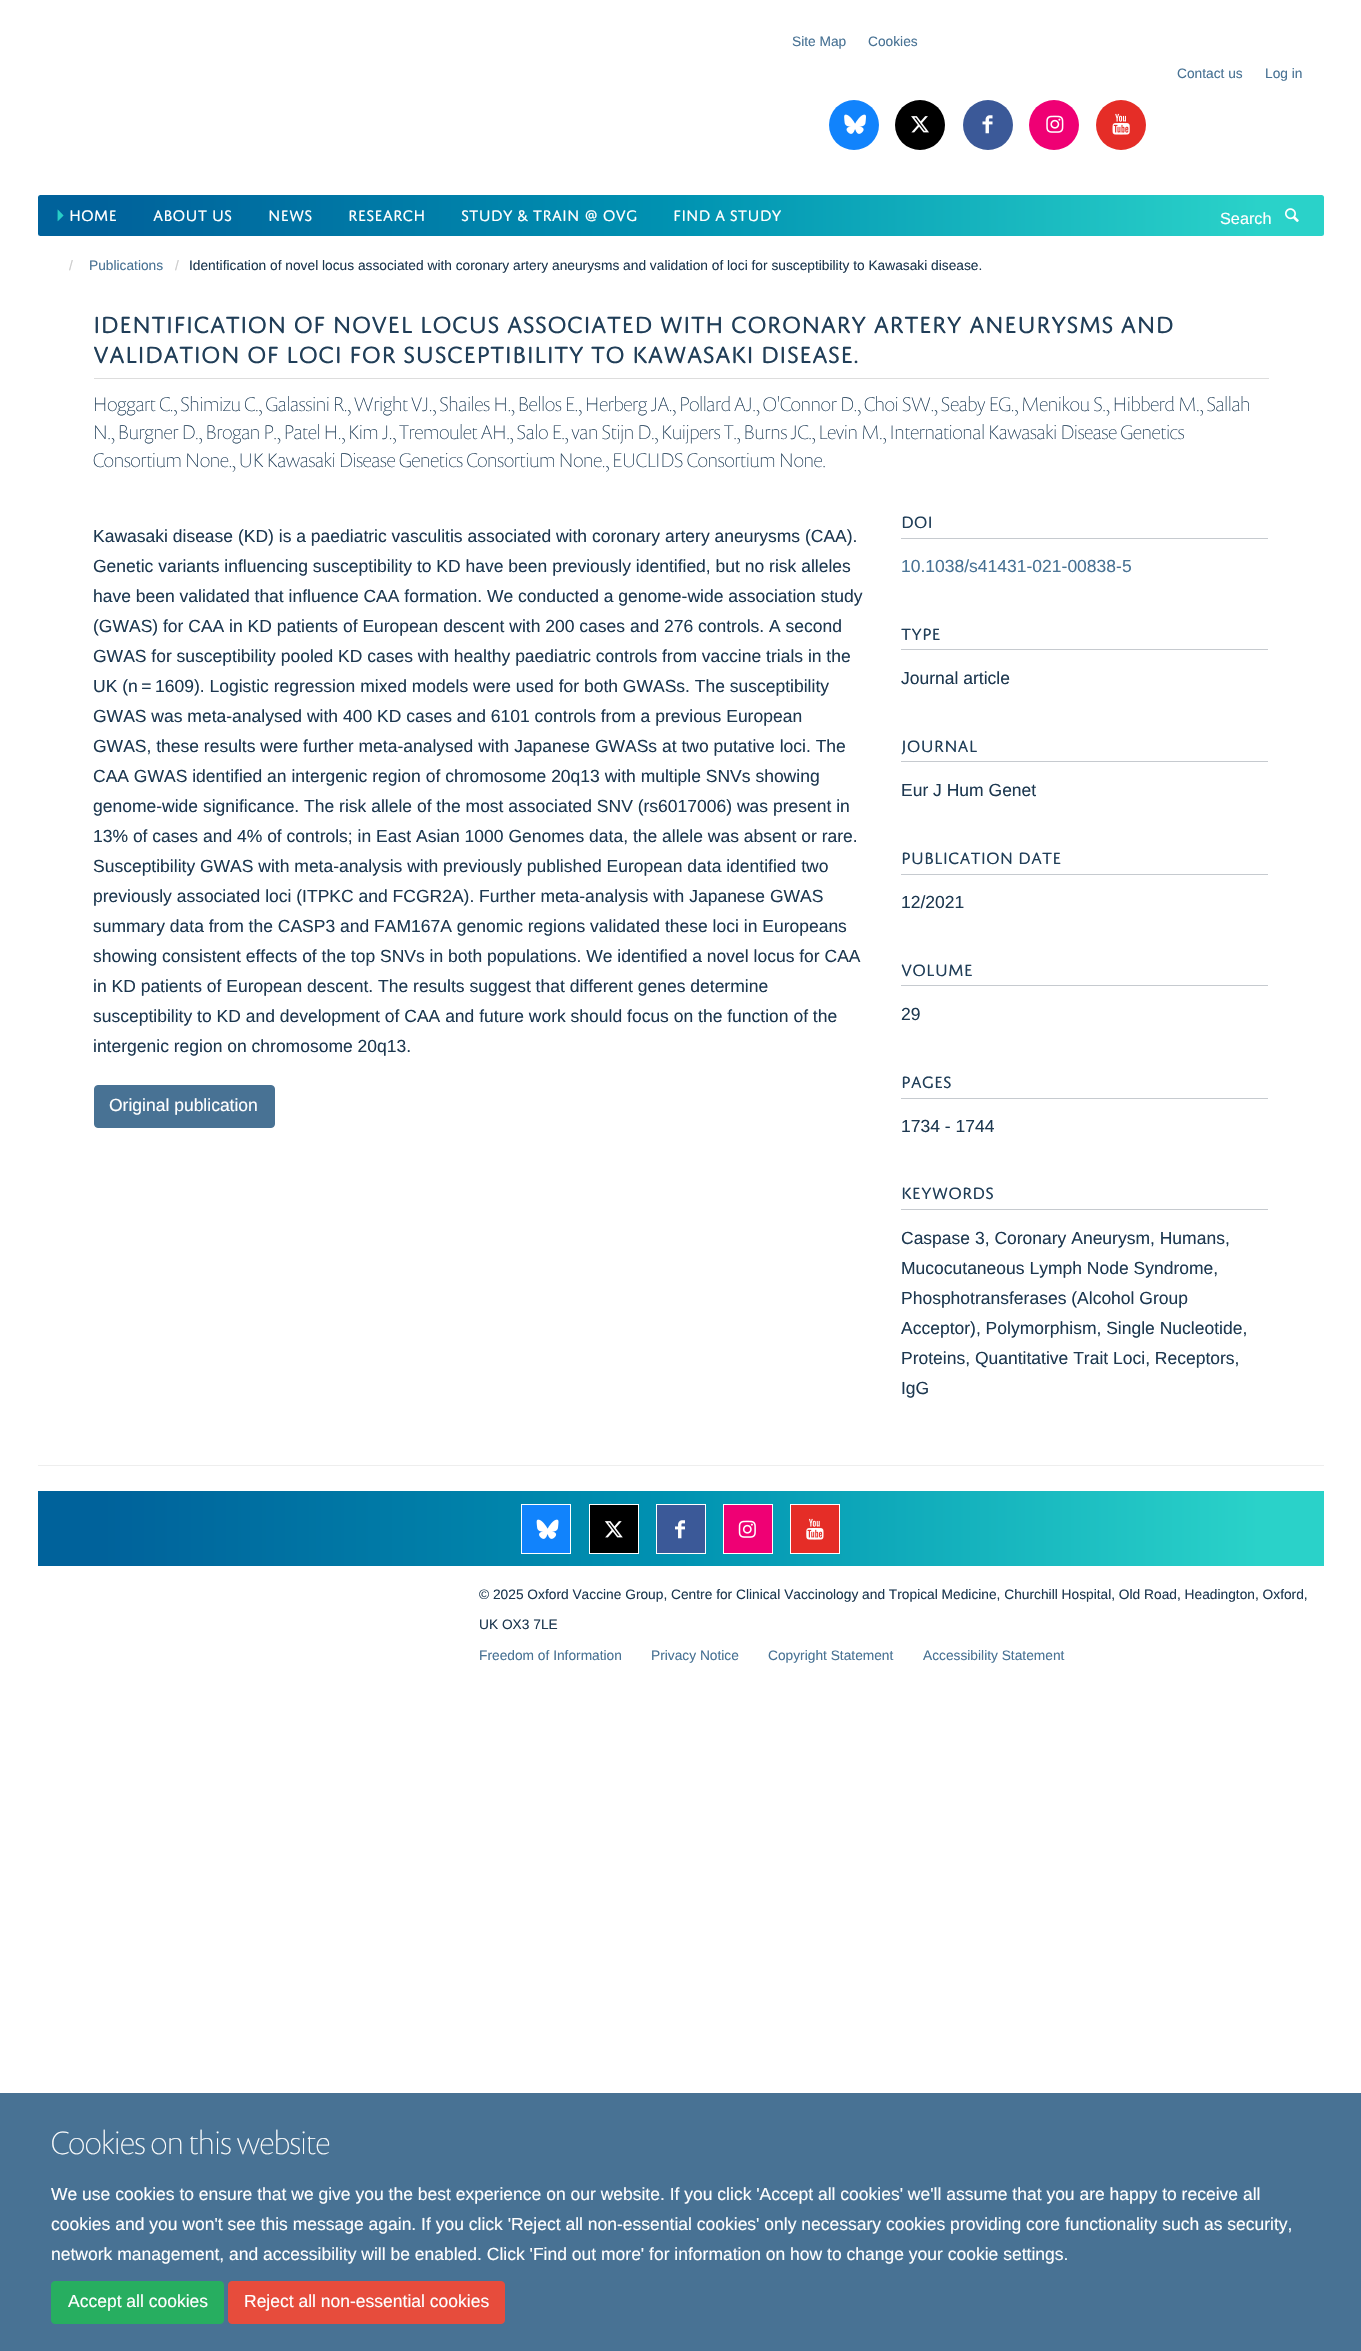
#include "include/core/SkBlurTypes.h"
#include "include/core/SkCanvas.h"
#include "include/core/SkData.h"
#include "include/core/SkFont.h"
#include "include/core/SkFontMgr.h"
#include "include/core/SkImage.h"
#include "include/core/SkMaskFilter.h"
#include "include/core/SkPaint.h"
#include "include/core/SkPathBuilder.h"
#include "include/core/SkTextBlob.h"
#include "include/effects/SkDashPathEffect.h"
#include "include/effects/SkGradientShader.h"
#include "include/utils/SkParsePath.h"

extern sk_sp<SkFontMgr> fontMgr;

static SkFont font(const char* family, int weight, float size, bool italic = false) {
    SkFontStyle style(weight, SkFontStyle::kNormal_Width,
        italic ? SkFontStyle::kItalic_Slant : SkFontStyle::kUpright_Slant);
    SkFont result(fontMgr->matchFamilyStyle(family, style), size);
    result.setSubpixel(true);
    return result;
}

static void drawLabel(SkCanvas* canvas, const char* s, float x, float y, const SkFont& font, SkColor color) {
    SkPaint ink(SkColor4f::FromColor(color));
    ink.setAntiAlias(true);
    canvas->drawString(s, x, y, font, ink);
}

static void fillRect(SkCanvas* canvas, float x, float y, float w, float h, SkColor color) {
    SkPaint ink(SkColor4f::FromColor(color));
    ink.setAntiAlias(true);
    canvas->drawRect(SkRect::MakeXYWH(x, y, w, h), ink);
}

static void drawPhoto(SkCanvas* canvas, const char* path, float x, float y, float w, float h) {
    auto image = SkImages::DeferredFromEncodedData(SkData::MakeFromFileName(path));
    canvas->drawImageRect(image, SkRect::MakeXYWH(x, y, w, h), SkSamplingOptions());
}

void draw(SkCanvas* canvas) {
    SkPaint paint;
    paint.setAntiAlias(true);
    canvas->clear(0xFFFFFFFF);
    SkFont font1 = font("Liberation Sans", 400, 13.75f);
    drawLabel(canvas, "Site Map", 792, 46, font1, 0xFF487294);
    drawLabel(canvas, "Cookies", 868, 46, font1, 0xFF487294);
    drawLabel(canvas, "Contact us", 1177, 78, font1, 0xFF487294);
    drawLabel(canvas, "Log in", 1265, 78, font1, 0xFF487294);
    paint.setColor(0xFF1183FC);
    canvas->drawCircle(854, 125, 25, paint);
    drawPhoto(canvas, "assets/img1.png", 844, 114, 22, 20);
    paint.setColor(0xFF000000);
    canvas->drawCircle(920, 125, 25, paint);
    drawPhoto(canvas, "assets/img2.png", 911, 116, 18, 17);
    paint.setColor(0xFF3B5998);
    canvas->drawCircle(988, 125, 25, paint);
    drawPhoto(canvas, "assets/img3.png", 982, 115, 11, 19);
    paint.setColor(0xFFEF0074);
    canvas->drawCircle(1054, 125, 25, paint);
    drawPhoto(canvas, "assets/img4.png", 1046, 115, 18, 18);
    paint.setColor(0xFFE52D27);
    canvas->drawCircle(1121, 125, 25, paint);
    drawPhoto(canvas, "assets/img5.png", 1112, 113, 18, 22);
    {
        const SkColor colors[] = {0xFF00629B, 0xFF0093B2, 0xFF2AD2C9};
        const float stops[] = {0.05f, 0.5f, 0.95f};
        const SkPoint ends[] = {{38, 216}, {1324, 216}};
        paint.setShader(SkGradientShader::MakeLinear(ends, colors, stops, 3, SkTileMode::kClamp));
        paint.setAlpha(255);
    }
    canvas->drawRoundRect(SkRect::MakeXYWH(38, 195, 1286, 41), 2.5f, 2.5f, paint);
    SkFont font2 = font("FreeSans", 400, 16.25f);
    drawLabel(canvas, "⏵", 56, 221, font2, 0xFF27CEC7);
    SkFont font3 = font("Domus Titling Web", 400, 16.25f);
    drawLabel(canvas, "HOME", 69, 221, font3, 0xFFFFFFFF);
    drawLabel(canvas, "ABOUT US", 153, 221, font3, 0xFFFFFFFF);
    drawLabel(canvas, "NEWS", 268, 221, font3, 0xFFFFFFFF);
    drawLabel(canvas, "RESEARCH", 348, 221, font3, 0xFFFFFFFF);
    drawLabel(canvas, "STUDY & TRAIN @ OVG", 461, 221, font3, 0xFFFFFFFF);
    drawLabel(canvas, "FIND A STUDY", 673, 221, font3, 0xFFFFFFFF);
    SkFont font4 = font("Liberation Sans", 400, 16.25f);
    drawLabel(canvas, "Search", 1220, 224, font4, 0xFFFFFFFF);
    drawPhoto(canvas, "assets/img6.png", 1285, 208, 14, 14);
    drawLabel(canvas, "/", 69, 270, font1, 0xFFCCCCCC);
    drawLabel(canvas, "Publications", 89, 270, font1, 0xFF487294);
    drawLabel(canvas, "/", 175, 270, font1, 0xFFCCCCCC);
    drawLabel(canvas, "Identification of novel locus associated with coronary artery aneurysms and validation of loci for susceptibility to Kawasaki disease.", 189, 270, font1, 0xFF1D3850);
    fillRect(canvas, 94, 378, 1175, 1, 0xFFDDDDDD);
    SkFont font5 = font("Domus Titling Web", 400, 25);
    drawLabel(canvas, "IDENTIFICATION OF NOVEL LOCUS ASSOCIATED WITH CORONARY ARTERY ANEURYSMS AND", 93, 333, font5, 0xFF203E58);
    drawLabel(canvas, "VALIDATION OF LOCI FOR SUSCEPTIBILITY TO KAWASAKI DISEASE.", 93, 363, font5, 0xFF203E58);
    SkFont font6 = font("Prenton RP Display", 100, 20);
    drawLabel(canvas, "Hoggart C., Shimizu C., Galassini R., Wright VJ., Shailes H., Bellos E., Herberg JA., Pollard AJ., O'Connor D., Choi SW., Seaby EG., Menikou S., Hibberd M., Sallah", 93, 411, font6, 0xFF203E58);
    drawLabel(canvas, "N., Burgner D., Brogan P., Patel H., Kim J., Tremoulet AH., Salo E., van Stijn D., Kuijpers T., Burns JC., Levin M., International Kawasaki Disease Genetics", 93, 439, font6, 0xFF203E58);
    drawLabel(canvas, "Consortium None., UK Kawasaki Disease Genetics Consortium None., EUCLIDS Consortium None.", 93, 467, font6, 0xFF203E58);
    SkFont font7 = font("Liberation Sans", 400, 17.5f);
    drawLabel(canvas, "Kawasaki disease (KD) is a paediatric vasculitis associated with coronary artery aneurysms (CAA).", 93, 542, font7, 0xFF1D3850);
    drawLabel(canvas, "Genetic variants influencing susceptibility to KD have been previously identified, but no risk alleles", 93, 572, font7, 0xFF1D3850);
    drawLabel(canvas, "have been validated that influence CAA formation. We conducted a genome-wide association study", 93, 602, font7, 0xFF1D3850);
    drawLabel(canvas, "(GWAS) for CAA in KD patients of European descent with 200 cases and 276 controls. A second", 93, 632, font7, 0xFF1D3850);
    drawLabel(canvas, "GWAS for susceptibility pooled KD cases with healthy paediatric controls from vaccine trials in the", 93, 662, font7, 0xFF1D3850);
    drawLabel(canvas, "UK (n = 1609). Logistic regression mixed models were used for both GWASs. The susceptibility", 93, 692, font7, 0xFF1D3850);
    drawLabel(canvas, "GWAS was meta-analysed with 400 KD cases and 6101 controls from a previous European", 93, 722, font7, 0xFF1D3850);
    drawLabel(canvas, "GWAS, these results were further meta-analysed with Japanese GWASs at two putative loci. The", 93, 752, font7, 0xFF1D3850);
    drawLabel(canvas, "CAA GWAS identified an intergenic region of chromosome 20q13 with multiple SNVs showing", 93, 782, font7, 0xFF1D3850);
    drawLabel(canvas, "genome-wide significance. The risk allele of the most associated SNV (rs6017006) was present in", 93, 812, font7, 0xFF1D3850);
    drawLabel(canvas, "13% of cases and 4% of controls; in East Asian 1000 Genomes data, the allele was absent or rare.", 93, 842, font7, 0xFF1D3850);
    drawLabel(canvas, "Susceptibility GWAS with meta-analysis with previously published European data identified two", 93, 872, font7, 0xFF1D3850);
    drawLabel(canvas, "previously associated loci (ITPKC and FCGR2A). Further meta-analysis with Japanese GWAS", 93, 902, font7, 0xFF1D3850);
    drawLabel(canvas, "summary data from the CASP3 and FAM167A genomic regions validated these loci in Europeans", 93, 932, font7, 0xFF1D3850);
    drawLabel(canvas, "showing consistent effects of the top SNVs in both populations. We identified a novel locus for CAA", 93, 962, font7, 0xFF1D3850);
    drawLabel(canvas, "in KD patients of European descent. The results suggest that different genes determine", 93, 992, font7, 0xFF1D3850);
    drawLabel(canvas, "susceptibility to KD and development of CAA and future work should focus on the function of the", 93, 1022, font7, 0xFF1D3850);
    drawLabel(canvas, "intergenic region on chromosome 20q13.", 93, 1052, font7, 0xFF1D3850);
    paint.setShader(nullptr);
    paint.setColor(0xFF487294);
    canvas->drawRoundRect(SkRect::MakeXYWH(94.5f, 1085.5f, 180, 42), 3.5f, 3.5f, paint);
    paint.setStroke(true);
    paint.setStrokeWidth(1);
    canvas->drawRoundRect(SkRect::MakeXYWH(94.5f, 1085.5f, 180, 42), 3.5f, 3.5f, paint);
    drawLabel(canvas, "Original publication", 109, 1111, font7, 0xFFFFFFFF);
    fillRect(canvas, 901, 538, 367, 1, 0xFFC6CACF);
    SkFont font8 = font("Domus Titling Web", 400, 17.5f);
    drawLabel(canvas, "DOI", 901, 528, font8, 0xFF203E58);
    drawLabel(canvas, "10.1038/s41431-021-00838-5", 901, 572, font7, 0xFF487294);
    fillRect(canvas, 901, 649, 367, 1, 0xFFC6CACF);
    drawLabel(canvas, "TYPE", 901, 640, font8, 0xFF203E58);
    drawLabel(canvas, "Journal article", 901, 684, font7, 0xFF1D3850);
    fillRect(canvas, 901, 761, 367, 1, 0xFFC6CACF);
    drawLabel(canvas, "JOURNAL", 901, 752, font8, 0xFF203E58);
    drawLabel(canvas, "Eur J Hum Genet", 901, 796, font7, 0xFF1D3850);
    fillRect(canvas, 901, 874, 367, 1, 0xFFC6CACF);
    drawLabel(canvas, "PUBLICATION DATE", 901, 864, font8, 0xFF203E58);
    drawLabel(canvas, "12/2021", 901, 908, font7, 0xFF1D3850);
    fillRect(canvas, 901, 985, 367, 1, 0xFFC6CACF);
    drawLabel(canvas, "VOLUME", 901, 976, font8, 0xFF203E58);
    drawLabel(canvas, "29", 901, 1020, font7, 0xFF1D3850);
    fillRect(canvas, 901, 1098, 367, 1, 0xFFC6CACF);
    drawLabel(canvas, "PAGES", 901, 1088, font8, 0xFF203E58);
    drawLabel(canvas, "1734 - 1744", 901, 1132, font7, 0xFF1D3850);
    fillRect(canvas, 901, 1209, 367, 1, 0xFFC6CACF);
    drawLabel(canvas, "KEYWORDS", 901, 1199, font8, 0xFF203E58);
    drawLabel(canvas, "Caspase 3, Coronary Aneurysm, Humans,", 901, 1244, font7, 0xFF1D3850);
    drawLabel(canvas, "Mucocutaneous Lymph Node Syndrome,", 901, 1274, font7, 0xFF1D3850);
    drawLabel(canvas, "Phosphotransferases (Alcohol Group", 901, 1304, font7, 0xFF1D3850);
    drawLabel(canvas, "Acceptor), Polymorphism, Single Nucleotide,", 901, 1334, font7, 0xFF1D3850);
    drawLabel(canvas, "Proteins, Quantitative Trait Loci, Receptors,", 901, 1364, font7, 0xFF1D3850);
    drawLabel(canvas, "IgG", 901, 1394, font7, 0xFF1D3850);
    fillRect(canvas, 38, 1465, 1286, 1, 0xFFEEEEEE);
    paint.setStroke(false);
    {
        const SkColor colors[] = {0xFF00629B, 0xFF0093B2, 0xFF2AD2C9};
        const float stops[] = {0.05f, 0.5f, 0.95f};
        const SkPoint ends[] = {{38, 1529}, {1324, 1529}};
        paint.setShader(SkGradientShader::MakeLinear(ends, colors, stops, 3, SkTileMode::kClamp));
        paint.setAlpha(255);
    }
    canvas->drawRect(SkRect::MakeXYWH(38, 1491, 1286, 75), paint);
    paint.setShader(nullptr);
    paint.setColor(0xFF1183FC);
    canvas->drawRect(SkRect::MakeXYWH(521.5f, 1504.5f, 49, 49), paint);
    paint.setStroke(true);
    paint.setColor(0xFFFFFFFF);
    canvas->drawRect(SkRect::MakeXYWH(521.5f, 1504.5f, 49, 49), paint);
    drawPhoto(canvas, "assets/img7.png", 536, 1519, 23, 20);
    paint.setStroke(false);
    paint.setColor(0xFF000000);
    canvas->drawRect(SkRect::MakeXYWH(589.5f, 1504.5f, 49, 49), paint);
    paint.setStroke(true);
    paint.setColor(0xFFFFFFFF);
    canvas->drawRect(SkRect::MakeXYWH(589.5f, 1504.5f, 49, 49), paint);
    drawPhoto(canvas, "assets/img8.png", 604, 1521, 19, 17);
    paint.setStroke(false);
    paint.setColor(0xFF3B5998);
    canvas->drawRect(SkRect::MakeXYWH(656.5f, 1504.5f, 49, 49), paint);
    paint.setStroke(true);
    paint.setColor(0xFFFFFFFF);
    canvas->drawRect(SkRect::MakeXYWH(656.5f, 1504.5f, 49, 49), paint);
    drawPhoto(canvas, "assets/img9.png", 675, 1520, 10, 19);
    paint.setStroke(false);
    paint.setColor(0xFFEF0074);
    canvas->drawRect(SkRect::MakeXYWH(723.5f, 1504.5f, 49, 49), paint);
    paint.setStroke(true);
    paint.setColor(0xFFFFFFFF);
    canvas->drawRect(SkRect::MakeXYWH(723.5f, 1504.5f, 49, 49), paint);
    drawPhoto(canvas, "assets/img10.png", 738, 1520, 18, 18);
    paint.setStroke(false);
    paint.setColor(0xFFE52D27);
    canvas->drawRect(SkRect::MakeXYWH(790.5f, 1504.5f, 49, 49), paint);
    paint.setStroke(true);
    paint.setColor(0xFFFFFFFF);
    canvas->drawRect(SkRect::MakeXYWH(790.5f, 1504.5f, 49, 49), paint);
    drawPhoto(canvas, "assets/img11.png", 806, 1518, 18, 22);
    drawLabel(canvas, "© 2025 Oxford Vaccine Group, Centre for Clinical Vaccinology and Tropical Medicine, Churchill Hospital, Old Road, Headington, Oxford,", 479, 1599, font1, 0xFF1D3850);
    drawLabel(canvas, "UK OX3 7LE", 479, 1629, font1, 0xFF1D3850);
    drawLabel(canvas, "Freedom of Information", 479, 1660, font1, 0xFF487294);
    drawLabel(canvas, "Privacy Notice", 651, 1660, font1, 0xFF487294);
    drawLabel(canvas, "Copyright Statement", 768, 1660, font1, 0xFF487294);
    drawLabel(canvas, "Accessibility Statement", 923, 1660, font1, 0xFF487294);
    fillRect(canvas, 0, 2093, 1361, 258, 0xFF487294);
    SkFont font9 = font("Prenton RP Display", 100, 32.5f);
    drawLabel(canvas, "Cookies on this website", 51, 2154, font9, 0xFFFFFFFF);
    drawLabel(canvas, "We use cookies to ensure that we give you the best experience on our website. If you click 'Accept all cookies' we'll assume that you are happy to receive all", 51, 2200, font7, 0xFFFFFFFF);
    drawLabel(canvas, "cookies and you won't see this message again. If you click 'Reject all non-essential cookies' only necessary cookies providing core functionality such as security,", 51, 2230, font7, 0xFFFFFFFF);
    drawLabel(canvas, "network management, and accessibility will be enabled. Click 'Find out more' for information on how to change your cookie settings.", 51, 2260, font7, 0xFFFFFFFF);
    paint.setStroke(false);
    paint.setColor(0xFF27AE60);
    canvas->drawRoundRect(SkRect::MakeXYWH(51.5f, 2281.5f, 172, 42), 3.5f, 3.5f, paint);
    paint.setStroke(true);
    canvas->drawRoundRect(SkRect::MakeXYWH(51.5f, 2281.5f, 172, 42), 3.5f, 3.5f, paint);
    drawLabel(canvas, "Accept all cookies", 68, 2307, font7, 0xFFFFFFFF);
    paint.setStroke(false);
    paint.setColor(0xFFE74C3C);
    canvas->drawRoundRect(SkRect::MakeXYWH(228.5f, 2281.5f, 276, 42), 3.5f, 3.5f, paint);
    paint.setStroke(true);
    canvas->drawRoundRect(SkRect::MakeXYWH(228.5f, 2281.5f, 276, 42), 3.5f, 3.5f, paint);
    drawLabel(canvas, "Reject all non-essential cookies", 244, 2307, font7, 0xFFFFFFFF);
}
